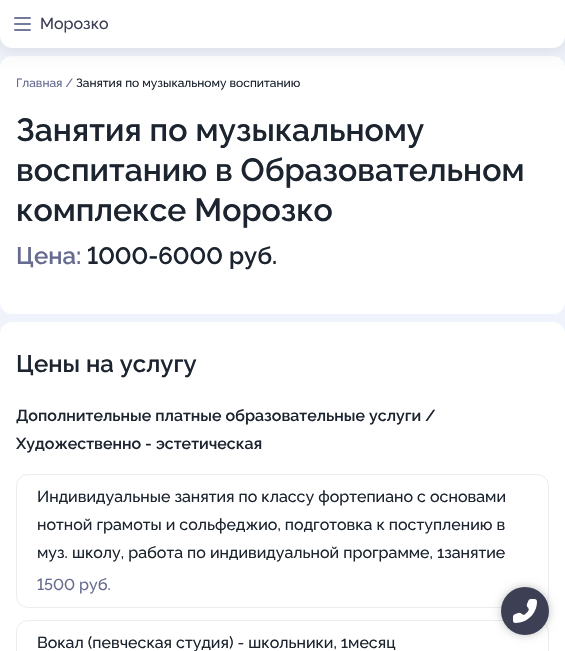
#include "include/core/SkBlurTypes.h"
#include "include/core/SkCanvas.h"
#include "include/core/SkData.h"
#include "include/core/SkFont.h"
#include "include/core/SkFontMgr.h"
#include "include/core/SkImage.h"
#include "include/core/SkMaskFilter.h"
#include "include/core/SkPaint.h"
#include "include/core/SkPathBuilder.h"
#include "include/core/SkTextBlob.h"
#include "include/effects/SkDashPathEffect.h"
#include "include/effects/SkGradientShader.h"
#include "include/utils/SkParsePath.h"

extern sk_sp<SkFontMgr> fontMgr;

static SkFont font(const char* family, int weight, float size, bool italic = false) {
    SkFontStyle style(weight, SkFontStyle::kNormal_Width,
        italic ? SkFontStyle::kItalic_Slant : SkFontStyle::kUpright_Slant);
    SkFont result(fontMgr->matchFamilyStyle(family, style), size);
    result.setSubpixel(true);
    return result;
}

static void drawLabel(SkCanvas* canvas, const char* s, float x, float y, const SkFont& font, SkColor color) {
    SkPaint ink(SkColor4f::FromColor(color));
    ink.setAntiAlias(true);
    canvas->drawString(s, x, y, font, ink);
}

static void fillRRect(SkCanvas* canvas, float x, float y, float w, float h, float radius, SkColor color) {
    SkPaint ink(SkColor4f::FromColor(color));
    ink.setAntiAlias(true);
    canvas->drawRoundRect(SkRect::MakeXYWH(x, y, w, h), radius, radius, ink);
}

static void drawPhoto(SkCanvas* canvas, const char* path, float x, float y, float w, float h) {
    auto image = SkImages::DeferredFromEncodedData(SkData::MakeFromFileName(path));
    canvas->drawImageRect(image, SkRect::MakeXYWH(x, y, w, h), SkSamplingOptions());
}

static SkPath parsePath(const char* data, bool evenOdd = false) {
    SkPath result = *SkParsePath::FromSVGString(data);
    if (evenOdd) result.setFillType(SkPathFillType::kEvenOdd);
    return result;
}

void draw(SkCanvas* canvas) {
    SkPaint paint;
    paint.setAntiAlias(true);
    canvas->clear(0xFFF0F3FC);
    fillRRect(canvas, 0, 56, 565, 258, 12, 0xFFFFFFFF);
    paint.setColor(0x0D000000);
    paint.setMaskFilter(SkMaskFilter::MakeBlur(kNormal_SkBlurStyle, 8));
    canvas->drawRoundRect(SkRect::MakeXYWH(0, 4, 565, 48), 12, 12, paint);
    paint.setMaskFilter(nullptr);
    paint.setMaskFilter(SkMaskFilter::MakeBlur(kNormal_SkBlurStyle, 8));
    canvas->drawRoundRect(SkRect::MakeXYWH(0, 0, 565, 48), 12, 12, paint);
    paint.setMaskFilter(nullptr);
    paint.setColor(0xFFFFFFFF);
    canvas->drawPath(parsePath("M0 0H565V36C565 42.5 559.5 48 553 48H12C5.5 48 0 42.5 0 36Z"), paint);
    fillRRect(canvas, 14, 23, 17, 2, 1, 0xFF767A9A);
    fillRRect(canvas, 14, 17, 17, 2, 1, 0xFF767A9A);
    fillRRect(canvas, 14, 29, 17, 2, 1, 0xFF767A9A);
    SkFont font1 = font("Raleway", 500, 16);
    drawLabel(canvas, "Морозко", 40, 29, font1, 0xFF3D3F55);
    SkFont font2 = font("Raleway", 500, 12);
    drawLabel(canvas, "Главная /", 16, 87, font2, 0xFF676B8F);
    drawLabel(canvas, "Занятия по музыкальному воспитанию", 76, 87, font2, 0xFF1C242F);
    SkFont font3 = font("Raleway", 600, 32);
    drawLabel(canvas, "Занятия по музыкальному", 16, 141, font3, 0xFF1C242F);
    drawLabel(canvas, "воспитанию в Образовательном", 16, 181, font3, 0xFF1C242F);
    drawLabel(canvas, "комплексе Морозко", 16, 221, font3, 0xFF1C242F);
    SkFont font4 = font("Raleway", 600, 24);
    drawLabel(canvas, "Цена:", 16, 264, font4, 0xFF676B8F);
    SkFont font5 = font("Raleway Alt", 600, 24);
    drawLabel(canvas, "1000-6000", 87, 264, font5, 0xFF1C242F);
    drawLabel(canvas, "руб.", 229, 264, font4, 0xFF1C242F);
    fillRRect(canvas, 0, 322, 565, 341, 12, 0xFFFFFFFF);
    drawLabel(canvas, "Цены на услугу", 16, 372, font4, 0xFF1C242F);
    SkFont font6 = font("Raleway", 600, 16);
    drawLabel(canvas, "Дополнительные платные образовательные услуги /", 16, 421, font6, 0xFF1C242F);
    drawLabel(canvas, "Художественно - эстетическая", 16, 449, font6, 0xFF1C242F);
    paint.setStroke(true);
    paint.setStrokeWidth(1);
    paint.setColor(0xFFECECEE);
    canvas->drawRoundRect(SkRect::MakeXYWH(16.5f, 474.5f, 532, 133), 11.5f, 11.5f, paint);
    drawLabel(canvas, "Индивидуальные занятия по классу фортепиано с основами", 37, 502, font1, 0xFF1C242F);
    drawLabel(canvas, "нотной грамоты и сольфеджио, подготовка к поступлению в", 37, 530, font1, 0xFF1C242F);
    drawLabel(canvas, "муз. школу, работа по индивидуальной программе, 1занятие", 37, 558, font1, 0xFF1C242F);
    SkFont font7 = font("Raleway Alt", 500, 16);
    drawLabel(canvas, "1500 руб.", 37, 590, font7, 0xFF676B8F);
    canvas->drawRoundRect(SkRect::MakeXYWH(16.5f, 620.5f, 532, 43), 11.5f, 11.5f, paint);
    drawLabel(canvas, "Вокал (певческая студия) - школьники, 1месяц", 37, 648, font1, 0xFF1C242F);
    paint.setStroke(false);
    paint.setColor(0x40000000);
    paint.setMaskFilter(SkMaskFilter::MakeBlur(kNormal_SkBlurStyle, 4));
    canvas->drawRoundRect(SkRect::MakeXYWH(501, 587, 48, 48), 24, 24, paint);
    paint.setMaskFilter(nullptr);
    paint.setColor(0xFF3D3F55);
    canvas->drawCircle(525, 611, 24, paint);
    drawPhoto(canvas, "assets/img1.png", 513, 599, 24, 24);
}
